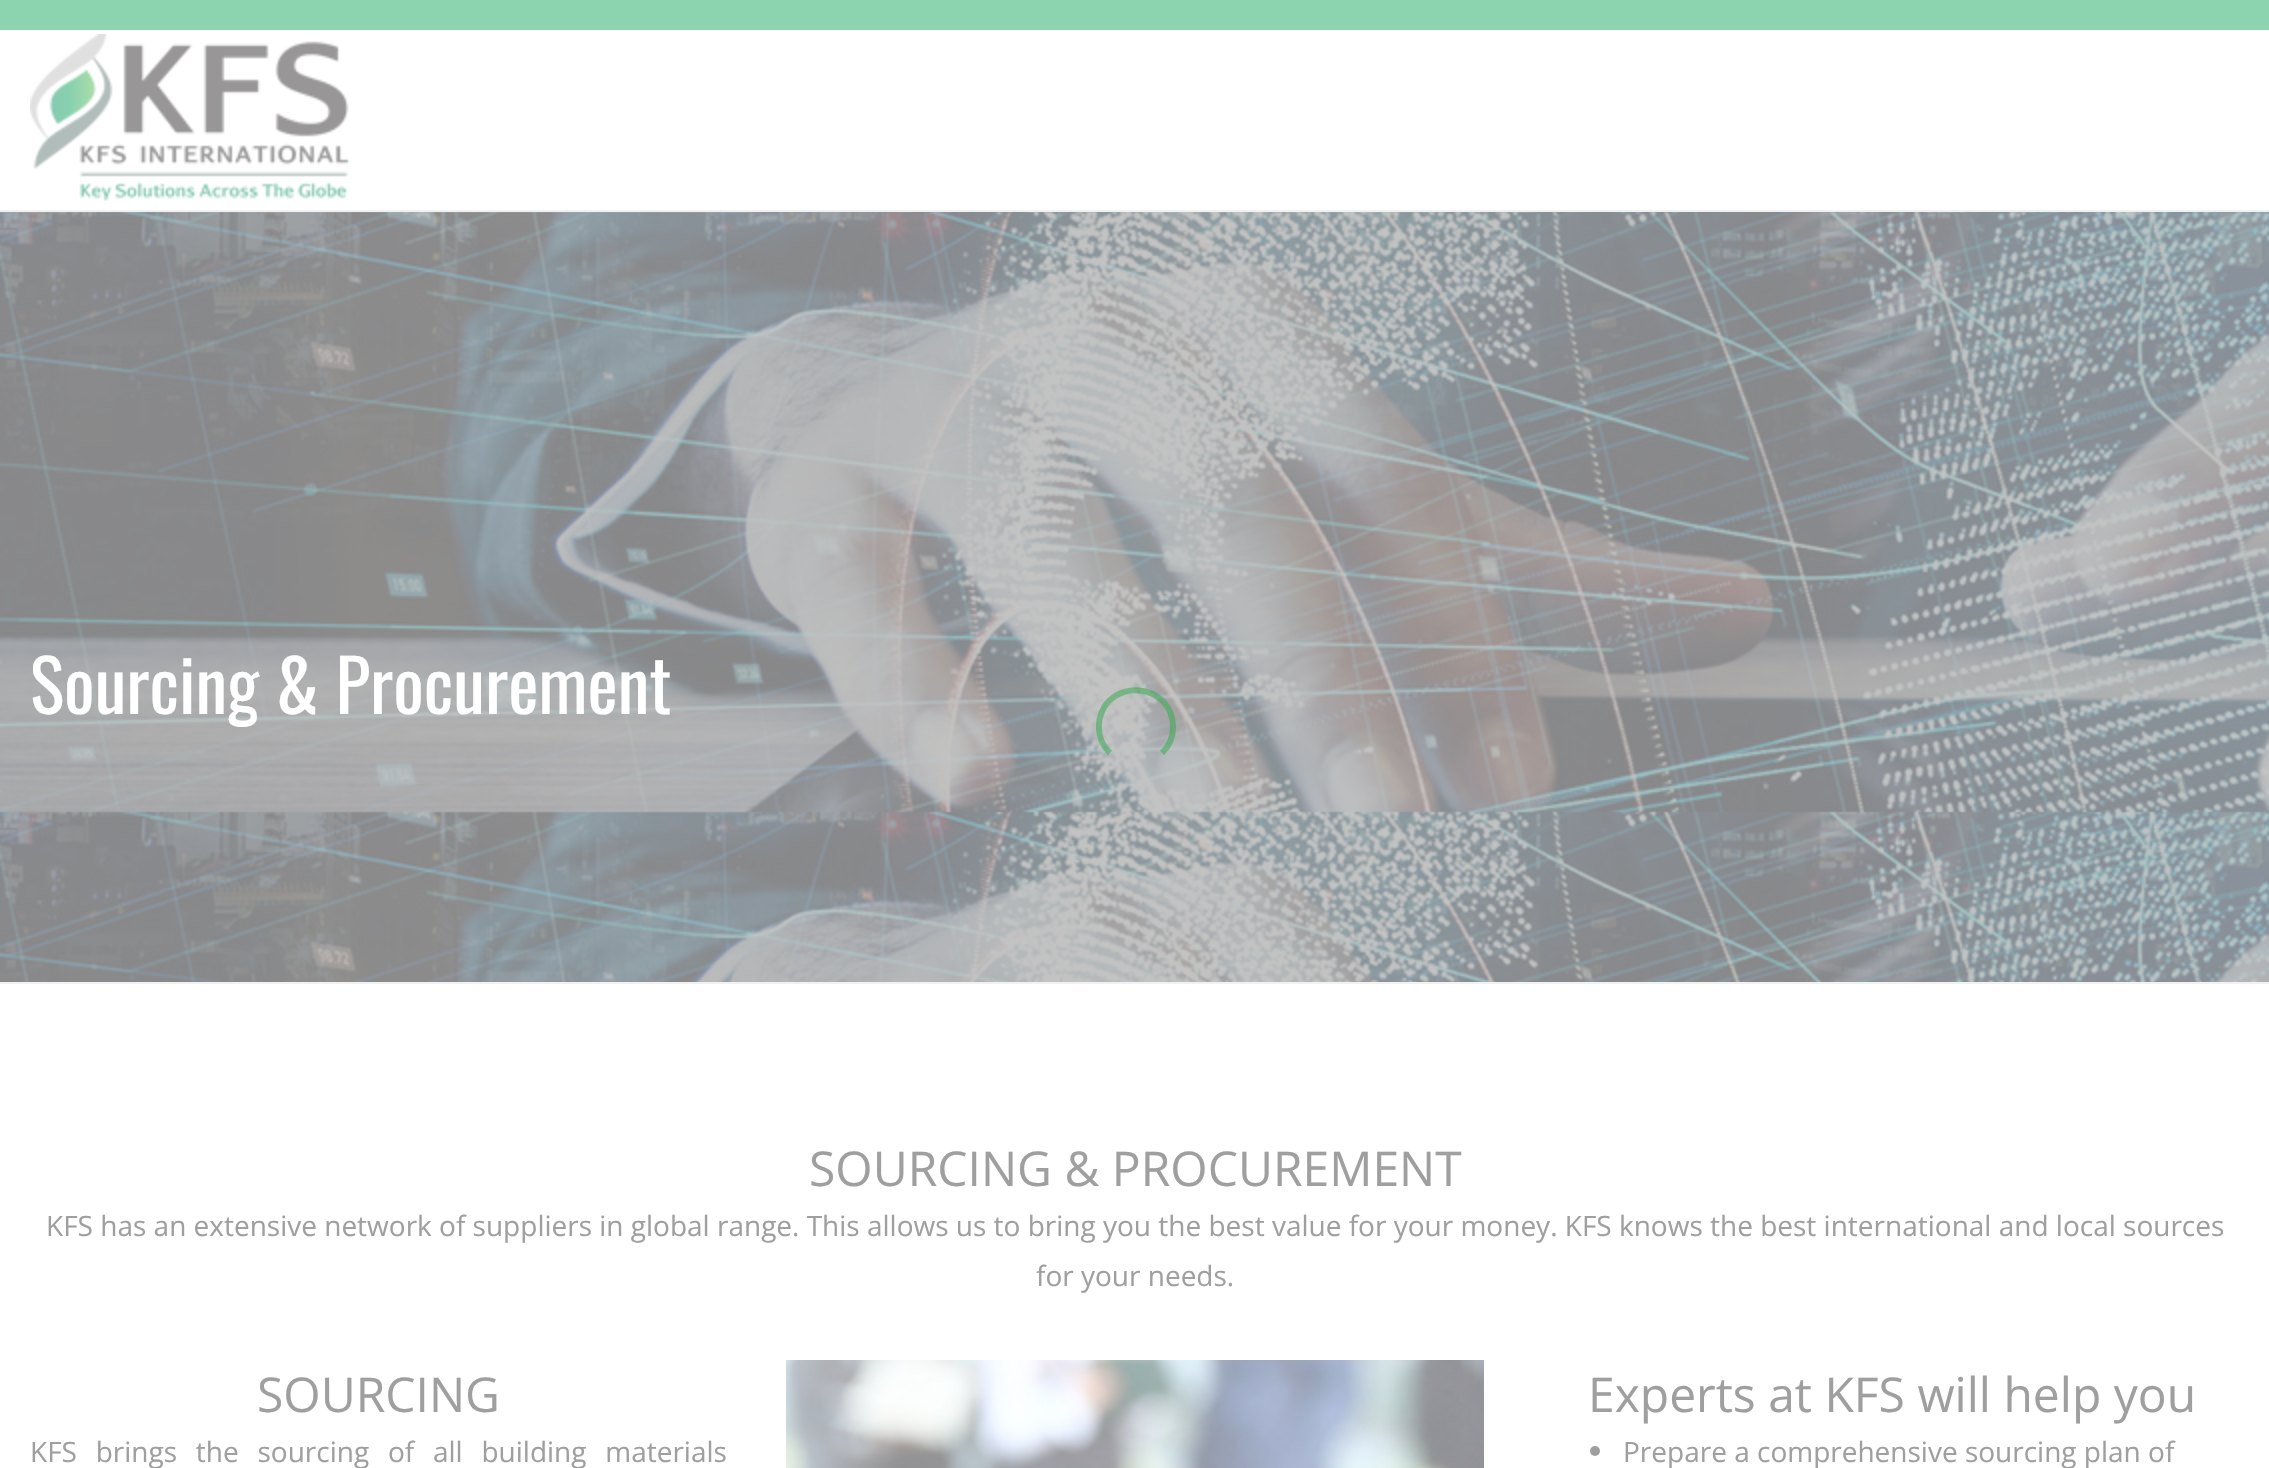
#include "include/core/SkBlurTypes.h"
#include "include/core/SkCanvas.h"
#include "include/core/SkData.h"
#include "include/core/SkFont.h"
#include "include/core/SkFontMgr.h"
#include "include/core/SkImage.h"
#include "include/core/SkMaskFilter.h"
#include "include/core/SkPaint.h"
#include "include/core/SkPathBuilder.h"
#include "include/core/SkTextBlob.h"
#include "include/effects/SkDashPathEffect.h"
#include "include/effects/SkGradientShader.h"
#include "include/utils/SkParsePath.h"

extern sk_sp<SkFontMgr> fontMgr;

static SkFont font(const char* family, int weight, float size, bool italic = false) {
    SkFontStyle style(weight, SkFontStyle::kNormal_Width,
        italic ? SkFontStyle::kItalic_Slant : SkFontStyle::kUpright_Slant);
    SkFont result(fontMgr->matchFamilyStyle(family, style), size);
    result.setSubpixel(true);
    return result;
}

static void drawLabel(SkCanvas* canvas, const char* s, float x, float y, const SkFont& font, SkColor color) {
    SkPaint ink(SkColor4f::FromColor(color));
    ink.setAntiAlias(true);
    canvas->drawString(s, x, y, font, ink);
}

static void drawTracked(SkCanvas* canvas, const char* s, float x, float y, const SkFont& font, const SkPaint& ink, float letter, float word) {
    std::vector<SkGlyphID> glyphs(font.countText(s, strlen(s), SkTextEncoding::kUTF8));
    std::vector<float> xs(glyphs.size());
    font.textToGlyphs(s, strlen(s), SkTextEncoding::kUTF8, glyphs);
    font.getXPos(glyphs, xs, x);
    float extra = 0;
    for (size_t i = 0; i < glyphs.size(); i++) {
        xs[i] += extra;
        extra += letter + word * (glyphs[i] == font.unicharToGlyph(' '));
    }
    canvas->drawTextBlob(SkTextBlob::MakeFromPosHGlyphs(glyphs, xs, y, font), 0, 0, ink);
}

static void fillRect(SkCanvas* canvas, float x, float y, float w, float h, SkColor color) {
    SkPaint ink(SkColor4f::FromColor(color));
    ink.setAntiAlias(true);
    canvas->drawRect(SkRect::MakeXYWH(x, y, w, h), ink);
}

static void drawPhoto(SkCanvas* canvas, const char* path, float x, float y, float w, float h) {
    auto image = SkImages::DeferredFromEncodedData(SkData::MakeFromFileName(path));
    canvas->drawImageRect(image, SkRect::MakeXYWH(x, y, w, h), SkSamplingOptions());
}

static SkPath parsePath(const char* data, bool evenOdd = false) {
    SkPath result = *SkParsePath::FromSVGString(data);
    if (evenOdd) result.setFillType(SkPathFillType::kEvenOdd);
    return result;
}

void draw(SkCanvas* canvas) {
    SkPaint paint;
    paint.setAntiAlias(true);
    canvas->clear(0xFFFFFFFF);
    fillRect(canvas, 0, 0, 2269, 30, 0xFF8CD3AF);
    drawPhoto(canvas, "assets/img1.png", 30, 34, 319, 167);
    fillRect(canvas, 0, 210, 2269, 2, 0xFFF1F1F1);
    drawPhoto(canvas, "assets/img2.png", 0, 212, 2269, 770);
    fillRect(canvas, 0, 982, 2269, 2, 0xFFF1F1F1);
    SkFont font1 = font("Oswald", 400, 72);
    drawLabel(canvas, "Sourcing & Procurement", 30, 714, font1, 0xFFFFFFFF);
    SkFont font2 = font("Open Sans", 400, 48);
    drawLabel(canvas, "SOURCING & PROCUREMENT", 809, 1186, font2, 0xFF9F9F9F);
    SkFont font3 = font("Open Sans", 400, 28);
    drawLabel(canvas, "KFS has an extensive network of suppliers in global range. This allows us to bring you the best value for your money. KFS knows the best international and local sources", 46, 1236, font3, 0xFF9F9F9F);
    drawLabel(canvas, "for your needs.", 1036, 1286, font3, 0xFF9F9F9F);
    drawLabel(canvas, "SOURCING", 257, 1412, font2, 0xFF9F9F9F);
    paint.setColor(0xFF9F9F9F);
    drawTracked(canvas, "KFS brings the sourcing of all building materials", 30, 1462, font3, paint, 0, 11.5f);
    drawPhoto(canvas, "assets/img3.png", 786, 1360, 698, 108);
    drawLabel(canvas, "Experts at KFS will help you", 1588, 1412, font2, 0xFF9F9F9F);
    canvas->drawCircle(1595, 1451, 5, paint);
    drawLabel(canvas, "Prepare a comprehensive sourcing plan of", 1623, 1462, font3, 0xFF9F9F9F);
    paint.setStroke(true);
    paint.setStrokeWidth(6);
    paint.setColor(0x8734A84F);
    canvas->drawPath(parsePath("M1110 753C1101 744.5 1097.5 732 1099.5 719.5C1108.5 676.5 1173 682.5 1173 727C1173 736.5 1169 746.5 1162 753"), paint);
}
